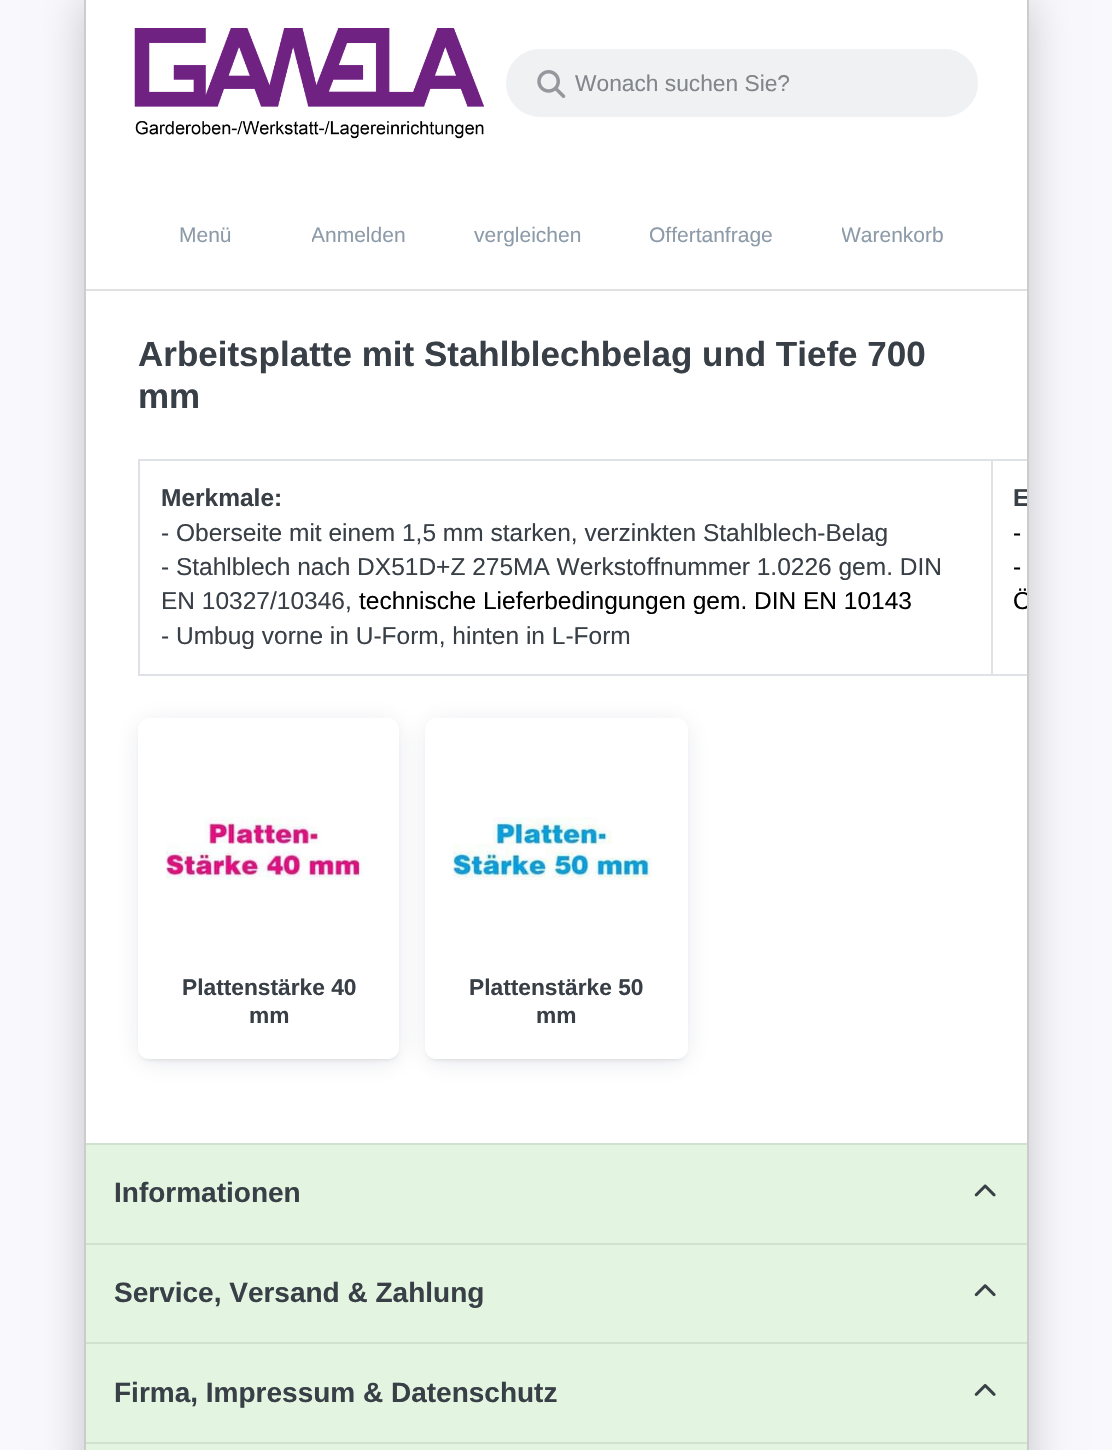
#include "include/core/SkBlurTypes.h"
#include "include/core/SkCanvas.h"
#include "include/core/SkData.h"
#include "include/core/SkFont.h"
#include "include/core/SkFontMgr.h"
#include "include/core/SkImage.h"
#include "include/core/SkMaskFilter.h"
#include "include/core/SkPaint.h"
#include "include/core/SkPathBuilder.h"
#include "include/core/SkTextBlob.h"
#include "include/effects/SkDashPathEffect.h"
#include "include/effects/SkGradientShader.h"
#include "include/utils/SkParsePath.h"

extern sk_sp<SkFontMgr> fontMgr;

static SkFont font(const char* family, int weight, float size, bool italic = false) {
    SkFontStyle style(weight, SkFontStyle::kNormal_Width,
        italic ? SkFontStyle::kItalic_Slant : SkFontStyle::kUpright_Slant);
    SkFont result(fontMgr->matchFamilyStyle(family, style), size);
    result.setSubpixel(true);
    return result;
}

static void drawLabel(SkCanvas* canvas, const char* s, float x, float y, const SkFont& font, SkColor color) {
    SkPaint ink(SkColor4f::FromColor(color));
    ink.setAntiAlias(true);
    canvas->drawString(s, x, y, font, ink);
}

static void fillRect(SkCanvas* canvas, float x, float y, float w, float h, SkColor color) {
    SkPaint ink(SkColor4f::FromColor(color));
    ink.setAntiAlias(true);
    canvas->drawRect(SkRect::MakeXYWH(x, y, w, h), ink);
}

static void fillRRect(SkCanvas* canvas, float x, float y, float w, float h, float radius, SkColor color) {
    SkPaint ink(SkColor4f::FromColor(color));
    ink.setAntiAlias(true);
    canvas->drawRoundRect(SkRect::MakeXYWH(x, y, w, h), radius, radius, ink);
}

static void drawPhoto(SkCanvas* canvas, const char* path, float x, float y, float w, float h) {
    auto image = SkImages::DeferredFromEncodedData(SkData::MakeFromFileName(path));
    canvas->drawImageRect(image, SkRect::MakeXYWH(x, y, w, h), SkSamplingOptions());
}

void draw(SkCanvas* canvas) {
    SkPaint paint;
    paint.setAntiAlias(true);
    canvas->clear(0xFFF8F8FD);
    paint.setColor(0x33000000);
    paint.setMaskFilter(SkMaskFilter::MakeBlur(kNormal_SkBlurStyle, 21));
    canvas->drawRect(SkRect::MakeXYWH(84, 0, 945, 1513), paint);
    paint.setMaskFilter(nullptr);
    fillRect(canvas, 86, 0, 941, 1143, 0xFFFFFFFF);
    fillRect(canvas, 1027, 0, 2, 1450, 0xFFCCCCCC);
    fillRect(canvas, 84, 0, 2, 1450, 0xFFCCCCCC);
    fillRect(canvas, 86, 289, 941, 2, 0xFFE0E0E0);
    drawPhoto(canvas, "assets/img1.png", 134, 28, 350, 111);
    paint.setColor(0xFFEFF1F3);
    canvas->drawRoundRect(SkRect::MakeXYWH(507, 50, 470, 66), 33, 33, paint);
    paint.setStroke(true);
    paint.setStrokeWidth(2);
    canvas->drawRoundRect(SkRect::MakeXYWH(507, 50, 470, 66), 33, 33, paint);
    drawPhoto(canvas, "assets/img2.png", 537, 70, 29, 28);
    SkFont font1 = font("Liberation Sans", 400, 22.75f);
    drawLabel(canvas, "Wonach suchen Sie?", 575, 91, font1, 0xFF82868B);
    SkFont font2 = font("Liberation Sans", 400, 21);
    drawLabel(canvas, "Menü", 179, 242, font2, 0xFF8D9BA9);
    canvas->save();
    canvas->clipRect(SkRect::MakeXYWH(312, 222, 94, 28));
    drawLabel(canvas, "Anmelden", 311, 242, font2, 0xFF8D9BA9);
    canvas->restore();
    drawLabel(canvas, "vergleichen", 474, 242, font2, 0xFF8D9BA9);
    drawLabel(canvas, "Offertanfrage", 649, 242, font2, 0xFF8D9BA9);
    canvas->save();
    canvas->clipRect(SkRect::MakeXYWH(842, 222, 101, 28));
    drawLabel(canvas, "Warenkorb", 841, 242, font2, 0xFF8D9BA9);
    canvas->restore();
    SkFont font3 = font("Liberation Sans", 700, 35);
    drawLabel(canvas, "Arbeitsplatte mit Stahlblechbelag und Tiefe 700", 138, 366, font3, 0xFF393F46);
    drawLabel(canvas, "mm", 138, 408, font3, 0xFF393F46);
    fillRect(canvas, 138, 459, 889, 2, 0xFFDEE2E6);
    fillRect(canvas, 138, 674, 889, 2, 0xFFDEE2E6);
    fillRect(canvas, 138, 459, 2, 217, 0xFFDEE2E6);
    SkFont font4 = font("Liberation Sans", 700, 24.5f);
    drawLabel(canvas, "Merkmale:", 161, 506, font4, 0xFF393F46);
    SkFont font5 = font("Liberation Sans", 400, 24.5f);
    drawLabel(canvas, "- Oberseite mit einem 1,5 mm starken, verzinkten Stahlblech-Belag", 161, 541, font5, 0xFF393F46);
    drawLabel(canvas, "- Stahlblech nach DX51D+Z 275MA Werkstoffnummer 1.0226 gem. DIN", 161, 575, font5, 0xFF393F46);
    drawLabel(canvas, "EN 10327/10346,", 161, 609, font5, 0xFF393F46);
    drawLabel(canvas, "technische Lieferbedingungen gem. DIN EN 10143", 359, 609, font5, 0xFF000000);
    drawLabel(canvas, "- Umbug vorne in U-Form, hinten in L-Form", 161, 644, font5, 0xFF393F46);
    fillRect(canvas, 991, 459, 2, 217, 0xFFDEE2E6);
    canvas->save();
    canvas->clipRect(SkRect::MakeXYWH(86, 291, 941, 852));
    drawLabel(canvas, "E", 1013, 506, font4, 0xFF393F46);
    canvas->restore();
    drawLabel(canvas, "-", 1013, 541, font5, 0xFF000000);
    drawLabel(canvas, "-", 1013, 575, font5, 0xFF000000);
    canvas->save();
    canvas->clipRect(SkRect::MakeXYWH(86, 291, 941, 852));
    drawLabel(canvas, "Ö", 1013, 609, font5, 0xFF000000);
    canvas->restore();
    paint.setStroke(false);
    paint.setColor(0x26000000);
    paint.setMaskFilter(SkMaskFilter::MakeBlur(kNormal_SkBlurStyle, 2.5f));
    canvas->drawRoundRect(SkRect::MakeXYWH(142, 725, 254, 334), 7, 7, paint);
    paint.setMaskFilter(nullptr);
    paint.setColor(0x1F1A214B);
    paint.setMaskFilter(SkMaskFilter::MakeBlur(kNormal_SkBlurStyle, 14));
    canvas->drawRoundRect(SkRect::MakeXYWH(142, 725, 254, 334), 7, 7, paint);
    paint.setMaskFilter(nullptr);
    fillRRect(canvas, 138, 718, 261, 341, 11, 0xFFFFFFFF);
    drawPhoto(canvas, "assets/img3.png", 166, 817, 200, 63);
    SkFont font6 = font("Liberation Sans", 700, 22.75f);
    drawLabel(canvas, "Plattenstärke 40", 182, 995, font6, 0xFF393F46);
    drawLabel(canvas, "mm", 249, 1023, font6, 0xFF393F46);
    paint.setColor(0x26000000);
    paint.setMaskFilter(SkMaskFilter::MakeBlur(kNormal_SkBlurStyle, 2.5f));
    canvas->drawRoundRect(SkRect::MakeXYWH(429, 725, 255, 334), 7, 7, paint);
    paint.setMaskFilter(nullptr);
    paint.setColor(0x1F1A214B);
    paint.setMaskFilter(SkMaskFilter::MakeBlur(kNormal_SkBlurStyle, 14));
    canvas->drawRoundRect(SkRect::MakeXYWH(429, 725, 255, 334), 7, 7, paint);
    paint.setMaskFilter(nullptr);
    fillRRect(canvas, 425, 718, 263, 341, 11, 0xFFFFFFFF);
    drawPhoto(canvas, "assets/img4.png", 453, 817, 199, 63);
    drawLabel(canvas, "Plattenstärke 50", 469, 995, font6, 0xFF393F46);
    drawLabel(canvas, "mm", 536, 1023, font6, 0xFF393F46);
    fillRect(canvas, 86, 1145, 941, 305, 0xFFE3F5E1);
    fillRect(canvas, 86, 1143, 941, 2, 0xFFD1E1CF);
    fillRect(canvas, 86, 1243, 941, 2, 0xFFD1E1CF);
    SkFont font7 = font("Liberation Sans", 700, 28);
    drawLabel(canvas, "Informationen", 114, 1202, font7, 0xFF393F46);
    drawPhoto(canvas, "assets/img5.png", 974, 1184, 22, 13);
    fillRect(canvas, 86, 1342, 941, 2, 0xFFD1E1CF);
    drawLabel(canvas, "Service, Versand & Zahlung", 114, 1302, font7, 0xFF393F46);
    drawPhoto(canvas, "assets/img6.png", 974, 1284, 22, 13);
    fillRect(canvas, 86, 1442, 941, 2, 0xFFD1E1CF);
    drawLabel(canvas, "Firma, Impressum & Datenschutz", 114, 1402, font7, 0xFF393F46);
    drawPhoto(canvas, "assets/img7.png", 974, 1384, 22, 12);
}
